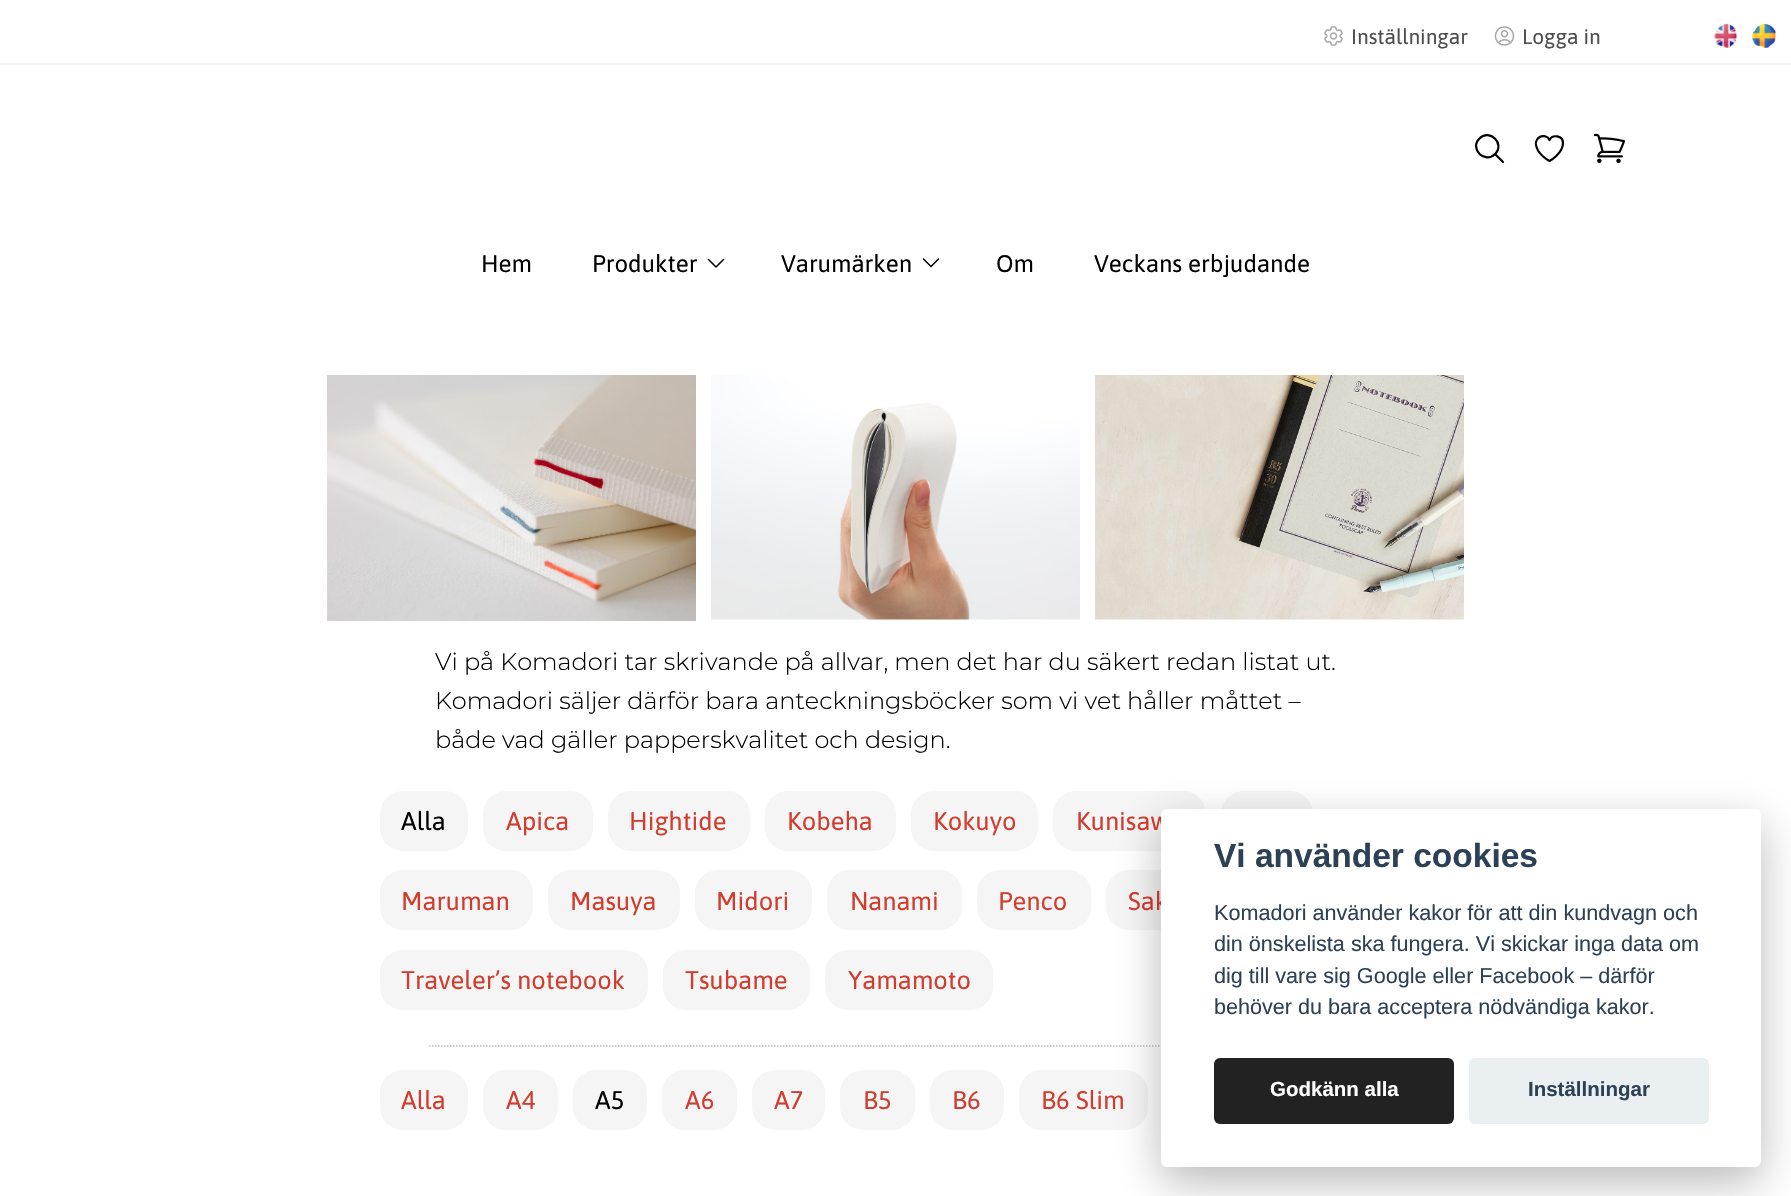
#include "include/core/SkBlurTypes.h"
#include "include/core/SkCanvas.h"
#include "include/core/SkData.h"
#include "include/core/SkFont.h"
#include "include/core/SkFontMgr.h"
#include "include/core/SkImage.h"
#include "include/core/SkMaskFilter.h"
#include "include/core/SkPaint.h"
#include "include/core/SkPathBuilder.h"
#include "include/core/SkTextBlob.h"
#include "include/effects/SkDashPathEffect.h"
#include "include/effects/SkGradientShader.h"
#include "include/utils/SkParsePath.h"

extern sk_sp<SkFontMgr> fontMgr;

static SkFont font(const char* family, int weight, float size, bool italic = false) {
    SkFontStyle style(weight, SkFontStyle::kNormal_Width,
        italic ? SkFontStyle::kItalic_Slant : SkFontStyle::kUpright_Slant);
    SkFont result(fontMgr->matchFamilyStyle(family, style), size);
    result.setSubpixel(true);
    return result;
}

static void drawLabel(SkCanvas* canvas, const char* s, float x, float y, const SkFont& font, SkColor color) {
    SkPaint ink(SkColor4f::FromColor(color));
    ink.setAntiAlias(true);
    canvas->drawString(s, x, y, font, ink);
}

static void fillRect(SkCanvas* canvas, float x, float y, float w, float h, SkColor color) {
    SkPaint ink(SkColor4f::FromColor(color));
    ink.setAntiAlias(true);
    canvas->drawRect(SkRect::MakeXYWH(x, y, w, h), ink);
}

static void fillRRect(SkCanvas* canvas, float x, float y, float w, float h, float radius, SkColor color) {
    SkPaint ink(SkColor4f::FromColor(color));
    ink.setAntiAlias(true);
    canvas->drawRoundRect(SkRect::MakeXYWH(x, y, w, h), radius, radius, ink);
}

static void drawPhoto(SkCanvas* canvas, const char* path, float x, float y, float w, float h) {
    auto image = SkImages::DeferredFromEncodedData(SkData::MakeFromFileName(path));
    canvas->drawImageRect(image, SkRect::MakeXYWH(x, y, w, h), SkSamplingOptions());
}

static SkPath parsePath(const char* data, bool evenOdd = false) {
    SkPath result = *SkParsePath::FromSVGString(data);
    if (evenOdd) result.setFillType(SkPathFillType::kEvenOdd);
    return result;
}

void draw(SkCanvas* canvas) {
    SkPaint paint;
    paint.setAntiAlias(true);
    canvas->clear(0xFFFFFFFF);
    drawPhoto(canvas, "assets/img1.png", 1324, 26, 19, 20);
    SkFont font1 = font("Asap", 400, 21);
    drawLabel(canvas, "Inställningar", 1351, 44, font1, 0xFF4D4D4D);
    drawPhoto(canvas, "assets/img2.png", 1494, 26, 21, 20);
    drawLabel(canvas, "Logga in", 1522, 44, font1, 0xFF4D4D4D);
    drawPhoto(canvas, "assets/img3.png", 1714, 24, 23, 24);
    drawPhoto(canvas, "assets/img4.png", 1752, 24, 24, 24);
    fillRect(canvas, 0, 63, 1791, 2, 0xFFF2F2F2);
    paint.setStroke(true);
    paint.setStrokeWidth(2.2f);
    paint.setStrokeCap(SkPaint::kRound_Cap);
    paint.setStrokeJoin(SkPaint::kRound_Join);
    paint.setColor(0xFF000000);
    canvas->drawPath(parsePath("M1503 162L1495 154M1495 154C1505.5 144 1489.5 128 1479.5 138.5C1469 148.5 1485 164.5 1495 154Z"), paint);
    canvas->drawPath(parsePath("M1563 143C1563 135.5 1552.5 134 1549.5 140C1546 132 1530.5 136.5 1538 150.5C1540.5 154.5 1545 158.5 1549.5 161C1549.5 161 1563 153.5 1563 143Z"), paint);
    drawPhoto(canvas, "assets/img5.png", 1593, 133, 32, 31);
    SkFont font2 = font("Asap", 400, 24);
    drawLabel(canvas, "Hem", 481, 272, font2, 0xFF000000);
    drawLabel(canvas, "Produkter", 592, 272, font2, 0xFF000000);
    paint.setStrokeWidth(1.5f);
    canvas->drawPath(parsePath("M723.5 259.5L716 267L708.5 259.5"), paint);
    drawLabel(canvas, "Varumärken", 781, 272, font2, 0xFF000000);
    canvas->drawPath(parsePath("M938.5 259L931 266.5L923.5 259"), paint);
    drawLabel(canvas, "Om", 996, 272, font2, 0xFF000000);
    drawLabel(canvas, "Veckans erbjudande", 1094, 272, font2, 0xFF000000);
    drawPhoto(canvas, "assets/img6.png", 327, 375, 369, 246);
    drawPhoto(canvas, "assets/img7.png", 711, 375, 369, 245);
    drawPhoto(canvas, "assets/img8.png", 1095, 375, 369, 245);
    SkFont font3 = font("Montserrat", 300, 24);
    drawLabel(canvas, "Vi på Komadori tar skrivande på allvar, men det har du säkert redan listat ut.", 435, 670, font3, 0xFF000000);
    drawLabel(canvas, "Komadori säljer därför bara anteckningsböcker som vi vet håller måttet –", 435, 709, font3, 0xFF000000);
    drawLabel(canvas, "både vad gäller papperskvalitet och design.", 435, 748, font3, 0xFF000000);
    fillRRect(canvas, 380, 791, 88, 60, 23, 0xFFF5F5F5);
    SkFont font4 = font("Asap", 400, 25.5f);
    drawLabel(canvas, "Alla", 401, 830, font4, 0xFF000000);
    fillRRect(canvas, 483, 791, 110, 60, 23, 0xFFF5F5F5);
    drawLabel(canvas, "Apica", 506, 830, font4, 0xFFD33B2C);
    fillRRect(canvas, 608, 791, 142, 60, 23, 0xFFF5F5F5);
    drawLabel(canvas, "Hightide", 629, 830, font4, 0xFFD33B2C);
    fillRRect(canvas, 765, 791, 131, 60, 23, 0xFFF5F5F5);
    drawLabel(canvas, "Kobeha", 787, 830, font4, 0xFFD33B2C);
    fillRRect(canvas, 911, 791, 127, 60, 23, 0xFFF5F5F5);
    drawLabel(canvas, "Kokuyo", 933, 830, font4, 0xFFD33B2C);
    fillRRect(canvas, 1053, 791, 153, 60, 23, 0xFFF5F5F5);
    drawLabel(canvas, "Kunisaw", 1076, 830, font4, 0xFFD33B2C);
    fillRRect(canvas, 1221, 791, 92, 60, 23, 0xFFF5F5F5);
    fillRRect(canvas, 380, 870, 153, 60, 23, 0xFFF5F5F5);
    drawLabel(canvas, "Maruman", 401, 910, font4, 0xFFD33B2C);
    fillRRect(canvas, 548, 870, 132, 60, 23, 0xFFF5F5F5);
    drawLabel(canvas, "Masuya", 570, 910, font4, 0xFFD33B2C);
    fillRRect(canvas, 695, 870, 117, 60, 23, 0xFFF5F5F5);
    drawLabel(canvas, "Midori", 716, 910, font4, 0xFFD33B2C);
    fillRRect(canvas, 827, 870, 135, 60, 23, 0xFFF5F5F5);
    drawLabel(canvas, "Nanami", 850, 910, font4, 0xFFD33B2C);
    fillRRect(canvas, 977, 870, 114, 60, 23, 0xFFF5F5F5);
    drawLabel(canvas, "Penco", 998, 910, font4, 0xFFD33B2C);
    fillRRect(canvas, 1106, 870, 112, 60, 23, 0xFFF5F5F5);
    drawLabel(canvas, "Sak", 1128, 910, font4, 0xFFD33B2C);
    fillRRect(canvas, 380, 950, 268, 60, 23, 0xFFF5F5F5);
    drawLabel(canvas, "Traveler’s notebook", 401, 989, font4, 0xFFD33B2C);
    fillRRect(canvas, 663, 950, 147, 60, 23, 0xFFF5F5F5);
    drawLabel(canvas, "Tsubame", 685, 989, font4, 0xFFD33B2C);
    fillRRect(canvas, 825, 950, 168, 60, 23, 0xFFF5F5F5);
    drawLabel(canvas, "Yamamoto", 848, 989, font4, 0xFFD33B2C);
    paint.setStrokeCap(SkPaint::kButt_Cap);
    paint.setStrokeJoin(SkPaint::kMiter_Join);
    paint.setColor(0xFFC0C0C0);
    paint.setPathEffect(SkDashPathEffect::Make({{1.5f, 1.5f}}, 0));
    canvas->drawPath(parsePath("M429 1046H1362"), paint);
    paint.setPathEffect(nullptr);
    fillRRect(canvas, 380, 1070, 88, 60, 23, 0xFFF5F5F5);
    drawLabel(canvas, "Alla", 401, 1109, font4, 0xFFD33B2C);
    fillRRect(canvas, 483, 1070, 75, 60, 23, 0xFFF5F5F5);
    drawLabel(canvas, "A4", 506, 1109, font4, 0xFFD33B2C);
    fillRRect(canvas, 573, 1070, 74, 60, 23, 0xFFF5F5F5);
    drawLabel(canvas, "A5", 595, 1109, font4, 0xFF000000);
    fillRRect(canvas, 662, 1070, 75, 60, 23, 0xFFF5F5F5);
    drawLabel(canvas, "A6", 685, 1109, font4, 0xFFD33B2C);
    fillRRect(canvas, 752, 1070, 73, 60, 23, 0xFFF5F5F5);
    drawLabel(canvas, "A7", 774, 1109, font4, 0xFFD33B2C);
    fillRRect(canvas, 840, 1070, 75, 60, 23, 0xFFF5F5F5);
    drawLabel(canvas, "B5", 863, 1109, font4, 0xFFD33B2C);
    fillRRect(canvas, 930, 1070, 74, 60, 23, 0xFFF5F5F5);
    drawLabel(canvas, "B6", 952, 1109, font4, 0xFFD33B2C);
    fillRRect(canvas, 1019, 1070, 129, 60, 23, 0xFFF5F5F5);
    drawLabel(canvas, "B6 Slim", 1041, 1109, font4, 0xFFD33B2C);
    paint.setStroke(false);
    paint.setColor(0x47020203);
    paint.setMaskFilter(SkMaskFilter::MakeBlur(kNormal_SkBlurStyle, 22.5f));
    canvas->drawRoundRect(SkRect::MakeXYWH(1161, 824, 600, 358), 6, 6, paint);
    paint.setMaskFilter(nullptr);
    fillRRect(canvas, 1161, 809, 600, 358, 6, 0xFFFFFFFF);
    SkFont font5 = font("Liberation Sans", 700, 33.5f);
    drawLabel(canvas, "Vi använder cookies", 1214, 867, font5, 0xFF2D4156);
    SkFont font6 = font("Liberation Sans", 400, 21.6f);
    drawLabel(canvas, "Komadori använder kakor för att din kundvagn och", 1214, 920, font6, 0xFF2D4156);
    drawLabel(canvas, "din önskelista ska fungera. Vi skickar inga data om", 1214, 951, font6, 0xFF2D4156);
    drawLabel(canvas, "dig till vare sig Google eller Facebook – därför", 1214, 983, font6, 0xFF2D4156);
    drawLabel(canvas, "behöver du bara acceptera nödvändiga kakor.", 1214, 1014, font6, 0xFF2D4156);
    fillRRect(canvas, 1214, 1058, 240, 66, 6, 0xFF222222);
    SkFont font7 = font("Liberation Sans", 700, 20.5f);
    drawLabel(canvas, "Godkänn alla", 1270, 1096, font7, 0xFFFFFFFF);
    fillRRect(canvas, 1469, 1058, 240, 66, 6, 0xFFEAEFF2);
    drawLabel(canvas, "Inställningar", 1528, 1096, font7, 0xFF2D4156);
}
